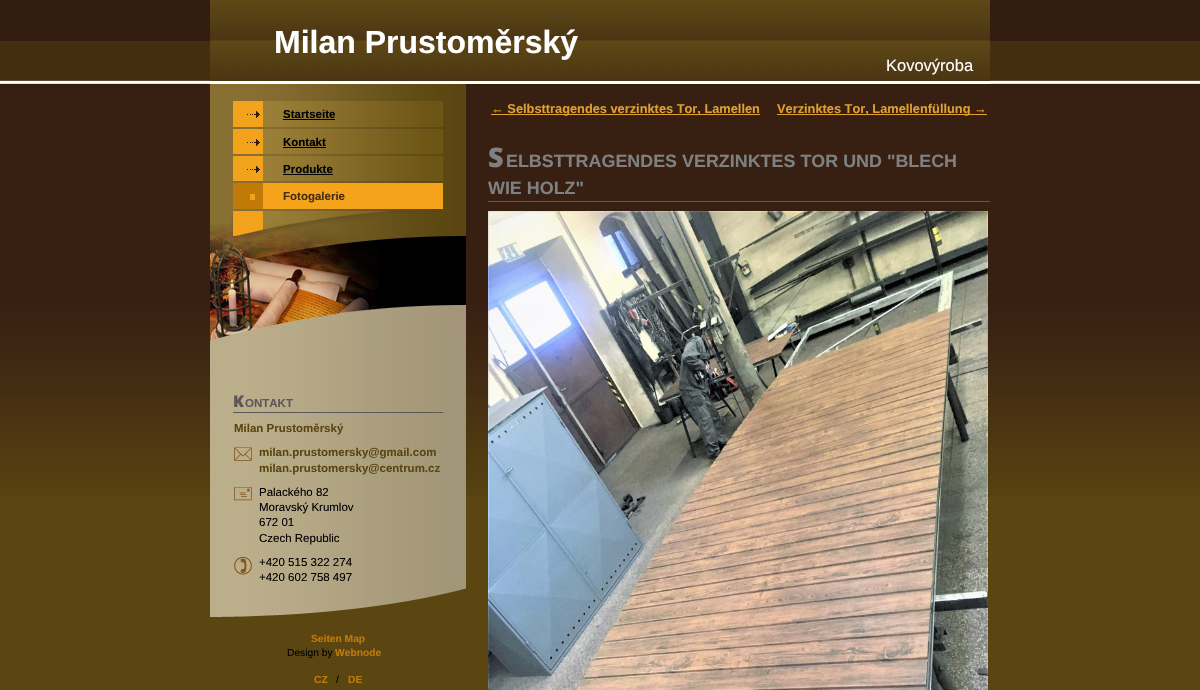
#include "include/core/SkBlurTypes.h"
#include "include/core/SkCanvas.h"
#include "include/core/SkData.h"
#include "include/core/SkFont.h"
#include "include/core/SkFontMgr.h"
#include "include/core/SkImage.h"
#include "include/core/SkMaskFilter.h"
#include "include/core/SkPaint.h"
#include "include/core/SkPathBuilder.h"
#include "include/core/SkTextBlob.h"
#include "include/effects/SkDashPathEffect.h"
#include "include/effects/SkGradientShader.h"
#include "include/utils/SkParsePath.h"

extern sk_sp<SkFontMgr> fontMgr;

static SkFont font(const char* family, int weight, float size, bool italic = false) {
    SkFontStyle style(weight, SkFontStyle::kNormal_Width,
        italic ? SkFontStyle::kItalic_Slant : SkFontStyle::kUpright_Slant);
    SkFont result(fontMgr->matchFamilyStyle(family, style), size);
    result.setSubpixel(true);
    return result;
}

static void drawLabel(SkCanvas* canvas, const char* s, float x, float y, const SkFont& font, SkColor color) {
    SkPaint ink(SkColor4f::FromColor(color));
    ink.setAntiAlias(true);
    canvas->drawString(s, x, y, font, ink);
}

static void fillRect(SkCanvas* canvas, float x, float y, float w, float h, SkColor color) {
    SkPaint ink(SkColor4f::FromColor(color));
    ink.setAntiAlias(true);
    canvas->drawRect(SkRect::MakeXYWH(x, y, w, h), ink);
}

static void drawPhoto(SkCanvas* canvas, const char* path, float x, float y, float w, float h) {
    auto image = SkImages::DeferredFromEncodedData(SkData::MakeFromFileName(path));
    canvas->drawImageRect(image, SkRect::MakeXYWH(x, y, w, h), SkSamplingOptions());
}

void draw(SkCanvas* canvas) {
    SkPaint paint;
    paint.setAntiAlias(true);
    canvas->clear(0xFF5B4611);
    drawPhoto(canvas, "assets/img1.png", 0, 0, 1200, 496);
    drawPhoto(canvas, "assets/img2.png", 210, 0, 780, 81);
    fillRect(canvas, 210, 83, 780, 1, 0xFFFFFFFF);
    SkFont font1 = font("Liberation Sans", 700, 32);
    drawLabel(canvas, "Milan Prustoměrský", 274, 53, font1, 0xFFFFFFFF);
    SkFont font2 = font("Liberation Sans", 400, 16.5f);
    drawLabel(canvas, "Kovovýroba", 886, 71, font2, 0xFFFFFFFF);
    drawPhoto(canvas, "assets/img3.png", 210, 343, 256, 245);
    drawPhoto(canvas, "assets/img4.png", 210, 84, 256, 127);
    drawPhoto(canvas, "assets/img5.png", 233, 101, 210, 26);
    drawPhoto(canvas, "assets/img6.png", 247, 111, 13, 7);
    SkFont font3 = font("Liberation Sans", 700, 11.5f);
    drawLabel(canvas, "Startseite", 283, 118, font3, 0xFF000000);
    fillRect(canvas, 283, 119, 52, 1, 0xFF000000);
    drawPhoto(canvas, "assets/img7.png", 233, 129, 210, 25);
    drawPhoto(canvas, "assets/img6.png", 247, 139, 13, 7);
    drawLabel(canvas, "Kontakt", 283, 146, font3, 0xFF000000);
    fillRect(canvas, 283, 147, 43, 1, 0xFF000000);
    drawPhoto(canvas, "assets/img7.png", 233, 156, 210, 25);
    drawPhoto(canvas, "assets/img6.png", 247, 166, 13, 7);
    drawLabel(canvas, "Produkte", 283, 173, font3, 0xFF000000);
    fillRect(canvas, 283, 174, 50, 1, 0xFF000000);
    drawPhoto(canvas, "assets/img8.png", 233, 183, 210, 26);
    fillRect(canvas, 250, 194, 5, 6, 0xFFF5A31B);
    drawLabel(canvas, "Fotogalerie", 283, 200, font3, 0xFF442E12);
    drawPhoto(canvas, "assets/img9.png", 210, 211, 256, 132);
    fillRect(canvas, 233, 412, 210, 1, 0xFF5C5859);
    SkFont font4 = font("Noto Sans", 900, 16);
    drawLabel(canvas, "K", 233, 407, font4, 0xFF5C5859);
    drawLabel(canvas, "ONTAKT", 245, 407, font3, 0xFF5C5859);
    drawLabel(canvas, "Milan Prustoměrský", 234, 432, font3, 0xFF5B4611);
    drawPhoto(canvas, "assets/img10.png", 234, 447, 18, 14);
    drawLabel(canvas, "milan.prustomersky@gmail.com", 259, 456, font3, 0xFF5B4611);
    drawLabel(canvas, "milan.prustomersky@centrum.cz", 259, 472, font3, 0xFF5B4611);
    drawPhoto(canvas, "assets/img11.png", 234, 487, 18, 14);
    SkFont font5 = font("Liberation Sans", 400, 11.5f);
    drawLabel(canvas, "Palackého 82", 259, 496, font5, 0xFF000000);
    drawLabel(canvas, "Moravský Krumlov", 259, 511, font5, 0xFF000000);
    drawLabel(canvas, "672 01", 259, 526, font5, 0xFF000000);
    drawLabel(canvas, "Czech Republic", 259, 542, font5, 0xFF000000);
    drawPhoto(canvas, "assets/img12.png", 234, 557, 18, 18);
    drawLabel(canvas, "+420 515 322 274", 259, 566, font5, 0xFF000000);
    drawLabel(canvas, "+420 602 758 497", 259, 581, font5, 0xFF000000);
    drawPhoto(canvas, "assets/img13.png", 210, 588, 256, 34);
    SkFont font6 = font("Liberation Sans", 700, 10.25f);
    drawLabel(canvas, "Seiten Map", 311, 642, font6, 0xFFC07A07);
    SkFont font7 = font("Liberation Sans", 400, 10.25f);
    drawLabel(canvas, "Design by", 287, 656, font7, 0xFF000000);
    drawLabel(canvas, "Webnode", 335, 656, font6, 0xFFC07A07);
    drawLabel(canvas, "CZ", 314, 683, font6, 0xFFC07A07);
    drawLabel(canvas, "/", 336, 683, font7, 0xFF000000);
    drawLabel(canvas, "DE", 348, 683, font6, 0xFFC07A07);
    fillRect(canvas, 491, 114, 269, 1, 0xFFE0A030);
    SkFont font8 = font("Liberation Sans", 700, 12.8f);
    drawLabel(canvas, "← Selbsttragendes verzinktes Tor, Lamellen", 491, 113, font8, 0xFFE0A030);
    fillRect(canvas, 777, 114, 210, 1, 0xFFE0A030);
    drawLabel(canvas, "Verzinktes Tor, Lamellenfüllung →", 777, 113, font8, 0xFFE0A030);
    fillRect(canvas, 488, 201, 502, 1, 0xFF5C5859);
    SkFont font9 = font("Noto Sans", 900, 27);
    drawLabel(canvas, "S", 488, 167, font9, 0xFF7E8081);
    SkFont font10 = font("Liberation Sans", 700, 17.9f);
    drawLabel(canvas, "ELBSTTRAGENDES VERZINKTES TOR UND \"BLECH", 506, 167, font10, 0xFF7E8081);
    drawLabel(canvas, "WIE HOLZ\"", 488, 194, font10, 0xFF7E8081);
    drawPhoto(canvas, "assets/img14.png", 488, 211, 500, 479);
}
